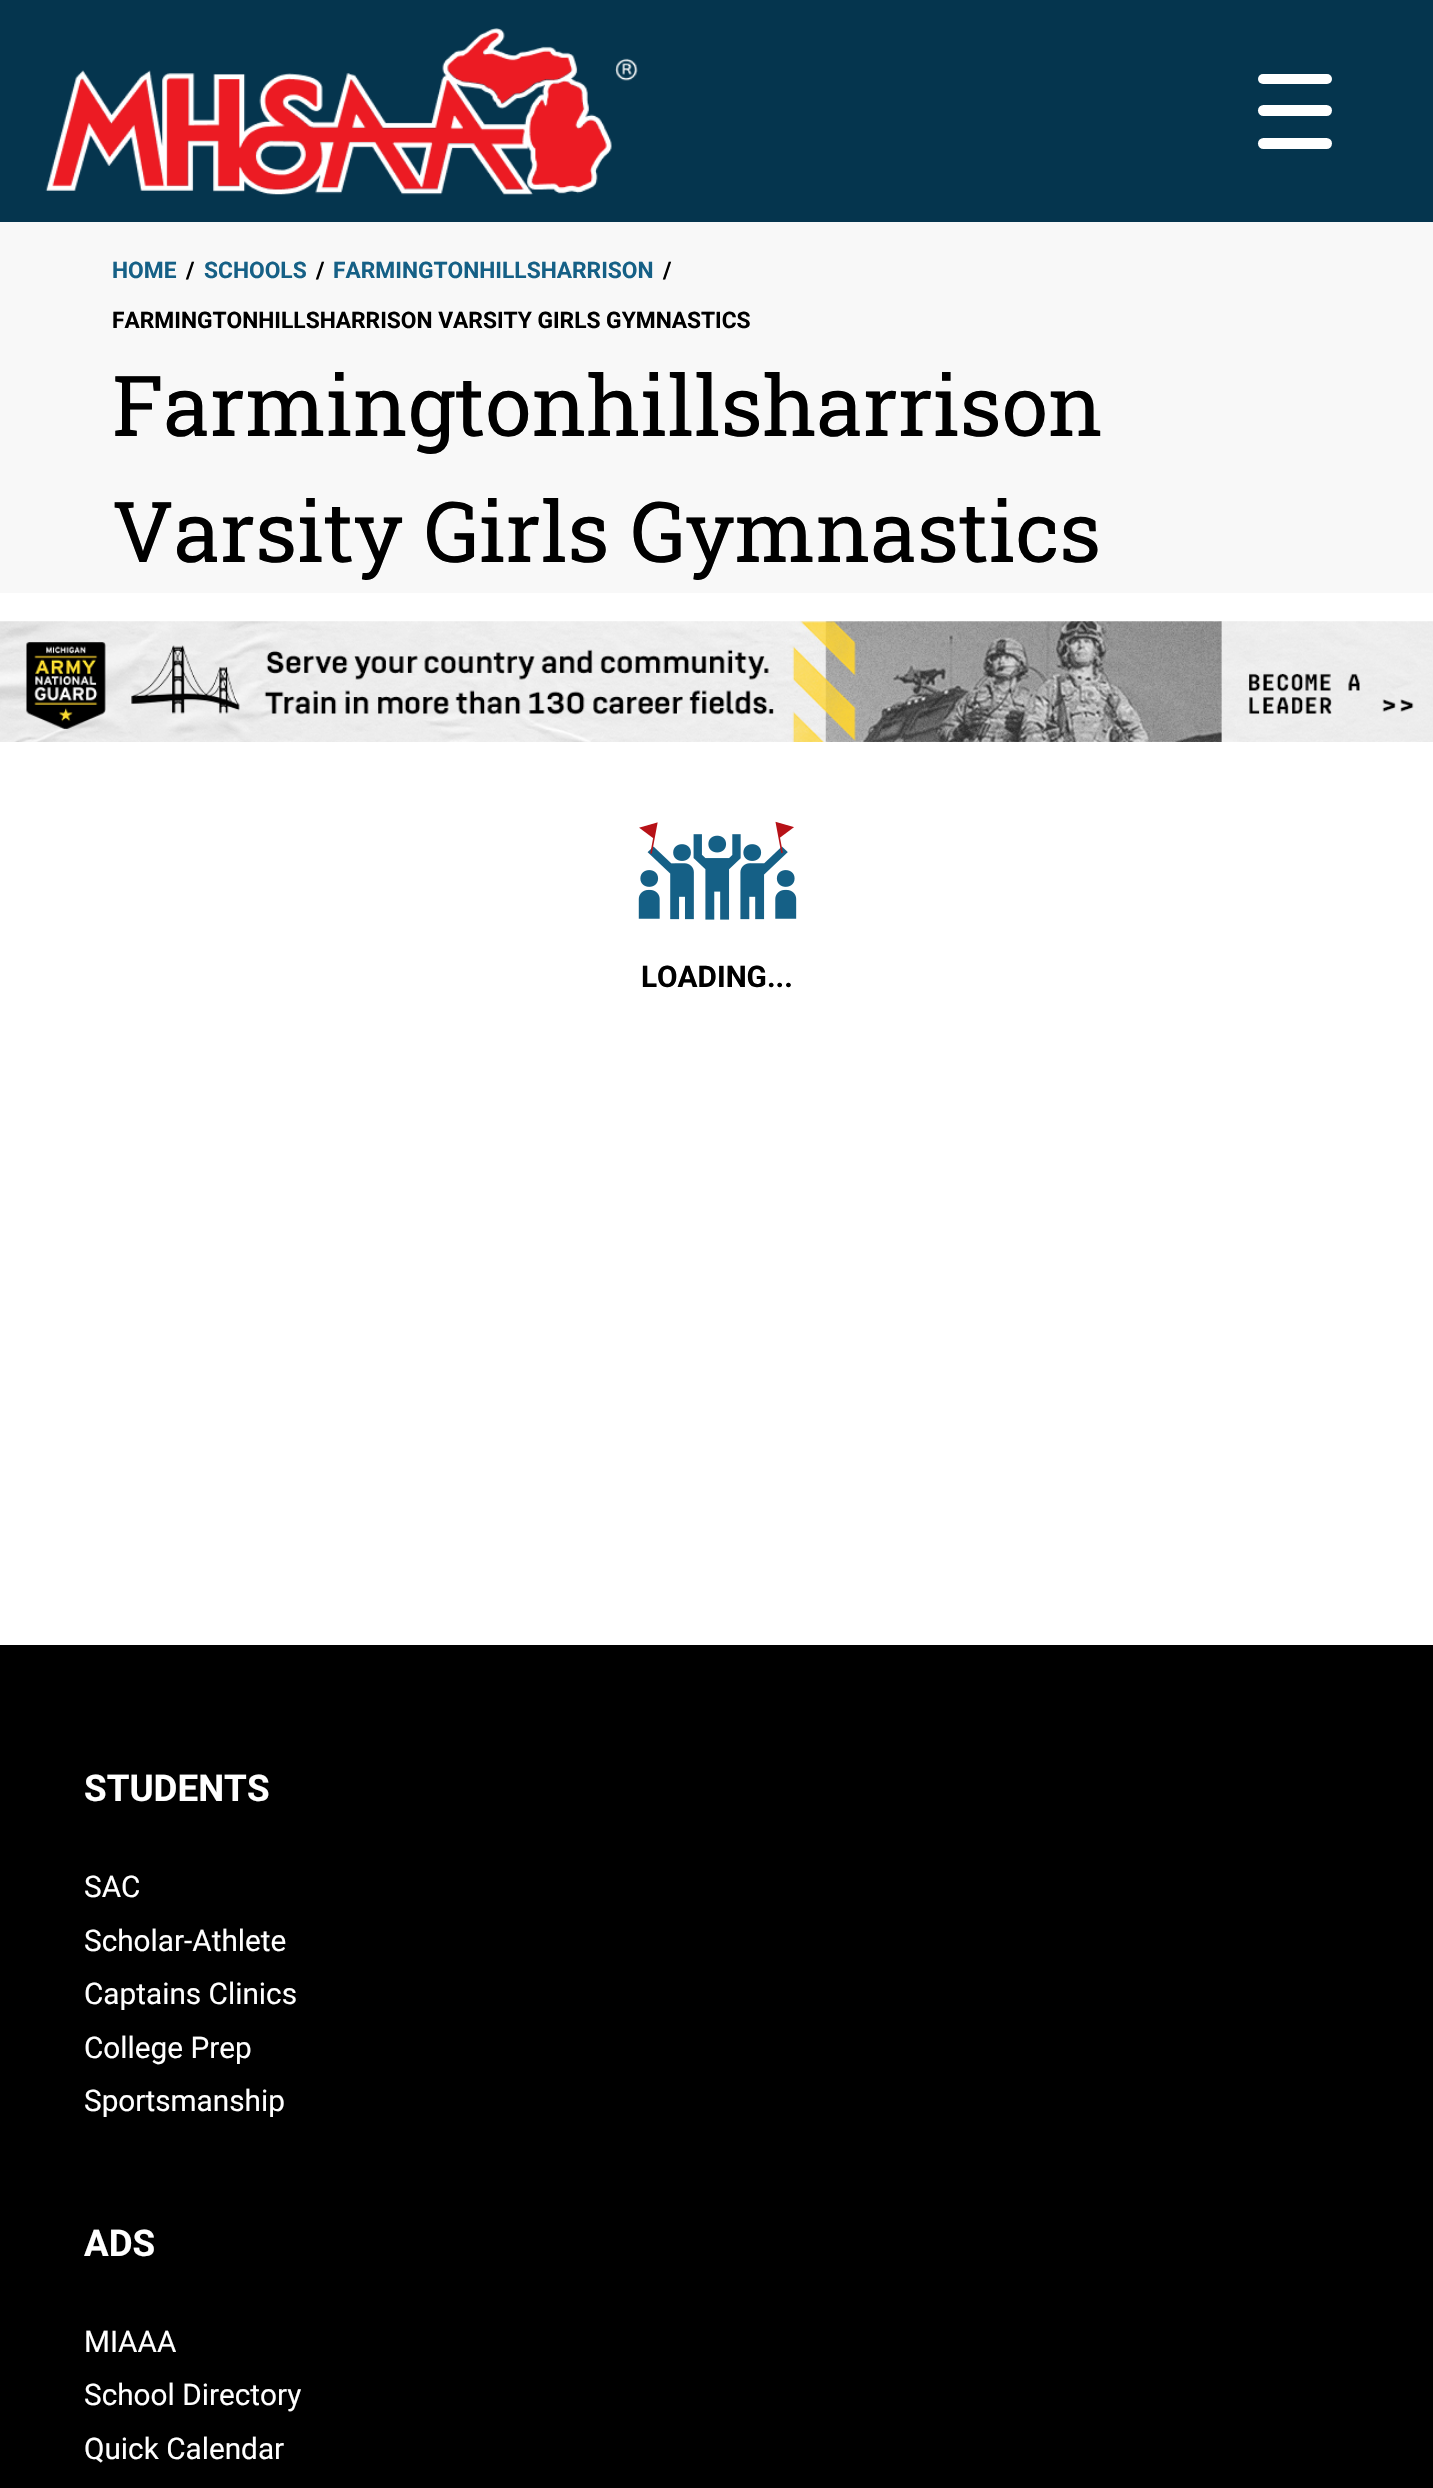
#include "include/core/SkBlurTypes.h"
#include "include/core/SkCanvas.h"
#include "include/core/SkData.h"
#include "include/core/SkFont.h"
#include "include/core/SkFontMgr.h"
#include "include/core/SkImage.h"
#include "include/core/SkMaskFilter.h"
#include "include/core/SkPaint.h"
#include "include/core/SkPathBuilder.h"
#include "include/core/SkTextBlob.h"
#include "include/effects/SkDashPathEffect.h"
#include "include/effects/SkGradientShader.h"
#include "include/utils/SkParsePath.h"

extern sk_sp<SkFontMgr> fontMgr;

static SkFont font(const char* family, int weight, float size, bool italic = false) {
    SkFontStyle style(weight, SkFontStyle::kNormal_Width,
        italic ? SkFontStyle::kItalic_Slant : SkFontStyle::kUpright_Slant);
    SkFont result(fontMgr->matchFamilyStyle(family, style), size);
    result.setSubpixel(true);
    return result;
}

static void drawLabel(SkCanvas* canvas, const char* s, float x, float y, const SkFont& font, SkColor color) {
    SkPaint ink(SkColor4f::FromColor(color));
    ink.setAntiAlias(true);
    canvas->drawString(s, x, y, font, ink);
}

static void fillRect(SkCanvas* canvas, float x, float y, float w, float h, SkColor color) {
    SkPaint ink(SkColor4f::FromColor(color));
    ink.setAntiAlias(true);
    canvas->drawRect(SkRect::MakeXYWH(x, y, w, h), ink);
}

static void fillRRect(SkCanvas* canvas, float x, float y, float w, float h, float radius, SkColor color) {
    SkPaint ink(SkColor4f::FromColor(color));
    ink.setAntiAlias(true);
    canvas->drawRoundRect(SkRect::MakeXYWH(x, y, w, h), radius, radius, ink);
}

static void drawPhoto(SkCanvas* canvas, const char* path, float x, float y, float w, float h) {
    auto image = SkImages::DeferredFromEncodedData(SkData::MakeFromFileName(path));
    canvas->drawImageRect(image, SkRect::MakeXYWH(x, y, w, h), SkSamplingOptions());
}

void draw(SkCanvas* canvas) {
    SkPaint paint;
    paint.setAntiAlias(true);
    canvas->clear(0xFFFFFFFF);
    fillRect(canvas, 0, 0, 1433, 222, 0xFF05354E);
    drawPhoto(canvas, "assets/img1.png", 45, 28, 593, 167);
    fillRRect(canvas, 1258, 74, 74, 10, 5, 0xFFFFFFFF);
    fillRRect(canvas, 1258, 105, 74, 11, 5.5f, 0xFFFFFFFF);
    fillRRect(canvas, 1258, 138, 74, 11, 5.5f, 0xFFFFFFFF);
    fillRect(canvas, 0, 222, 1433, 371, 0xFFF8F8F8);
    SkFont font1 = font("Roboto", 700, 22.75f);
    drawLabel(canvas, "HOME", 112, 278, font1, 0xFF156086);
    drawLabel(canvas, "/", 186, 278, font1, 0xFF000000);
    drawLabel(canvas, "SCHOOLS", 204, 278, font1, 0xFF156086);
    drawLabel(canvas, "/", 316, 278, font1, 0xFF000000);
    drawLabel(canvas, "FARMINGTONHILLSHARRISON", 333, 278, font1, 0xFF156086);
    drawLabel(canvas, "/", 663, 278, font1, 0xFF000000);
    drawLabel(canvas, "FARMINGTONHILLSHARRISON VARSITY GIRLS GYMNASTICS", 112, 328, font1, 0xFF000000);
    SkFont font2 = font("Roboto Slab", 400, 84);
    drawLabel(canvas, "Farmingtonhillsharrison", 112, 436, font2, 0xFF000000);
    drawLabel(canvas, "Varsity Girls Gymnastics", 112, 562, font2, 0xFF000000);
    drawPhoto(canvas, "assets/img2.png", 0, 621, 1433, 121);
    drawPhoto(canvas, "assets/img3.png", 638, 821, 159, 99);
    SkFont font3 = font("Roboto", 700, 29.75f);
    drawLabel(canvas, "LOADING...", 641, 987, font3, 0xFF000000);
    fillRect(canvas, 0, 1645, 1433, 843, 0xFF000000);
    SkFont font4 = font("Roboto", 700, 36.75f);
    drawLabel(canvas, "STUDENTS", 84, 1801, font4, 0xFFFFFFFF);
    SkFont font5 = font("Roboto", 400, 29.75f);
    drawLabel(canvas, "SAC", 84, 1897, font5, 0xFFFFFFFF);
    drawLabel(canvas, "Scholar-Athlete", 84, 1951, font5, 0xFFFFFFFF);
    drawLabel(canvas, "Captains Clinics", 84, 2004, font5, 0xFFFFFFFF);
    drawLabel(canvas, "College Prep", 84, 2058, font5, 0xFFFFFFFF);
    drawLabel(canvas, "Sportsmanship", 84, 2111, font5, 0xFFFFFFFF);
    drawLabel(canvas, "ADS", 84, 2256, font4, 0xFFFFFFFF);
    drawLabel(canvas, "MIAAA", 84, 2352, font5, 0xFFFFFFFF);
    drawLabel(canvas, "School Directory", 84, 2405, font5, 0xFFFFFFFF);
    drawLabel(canvas, "Quick Calendar", 84, 2459, font5, 0xFFFFFFFF);
}
